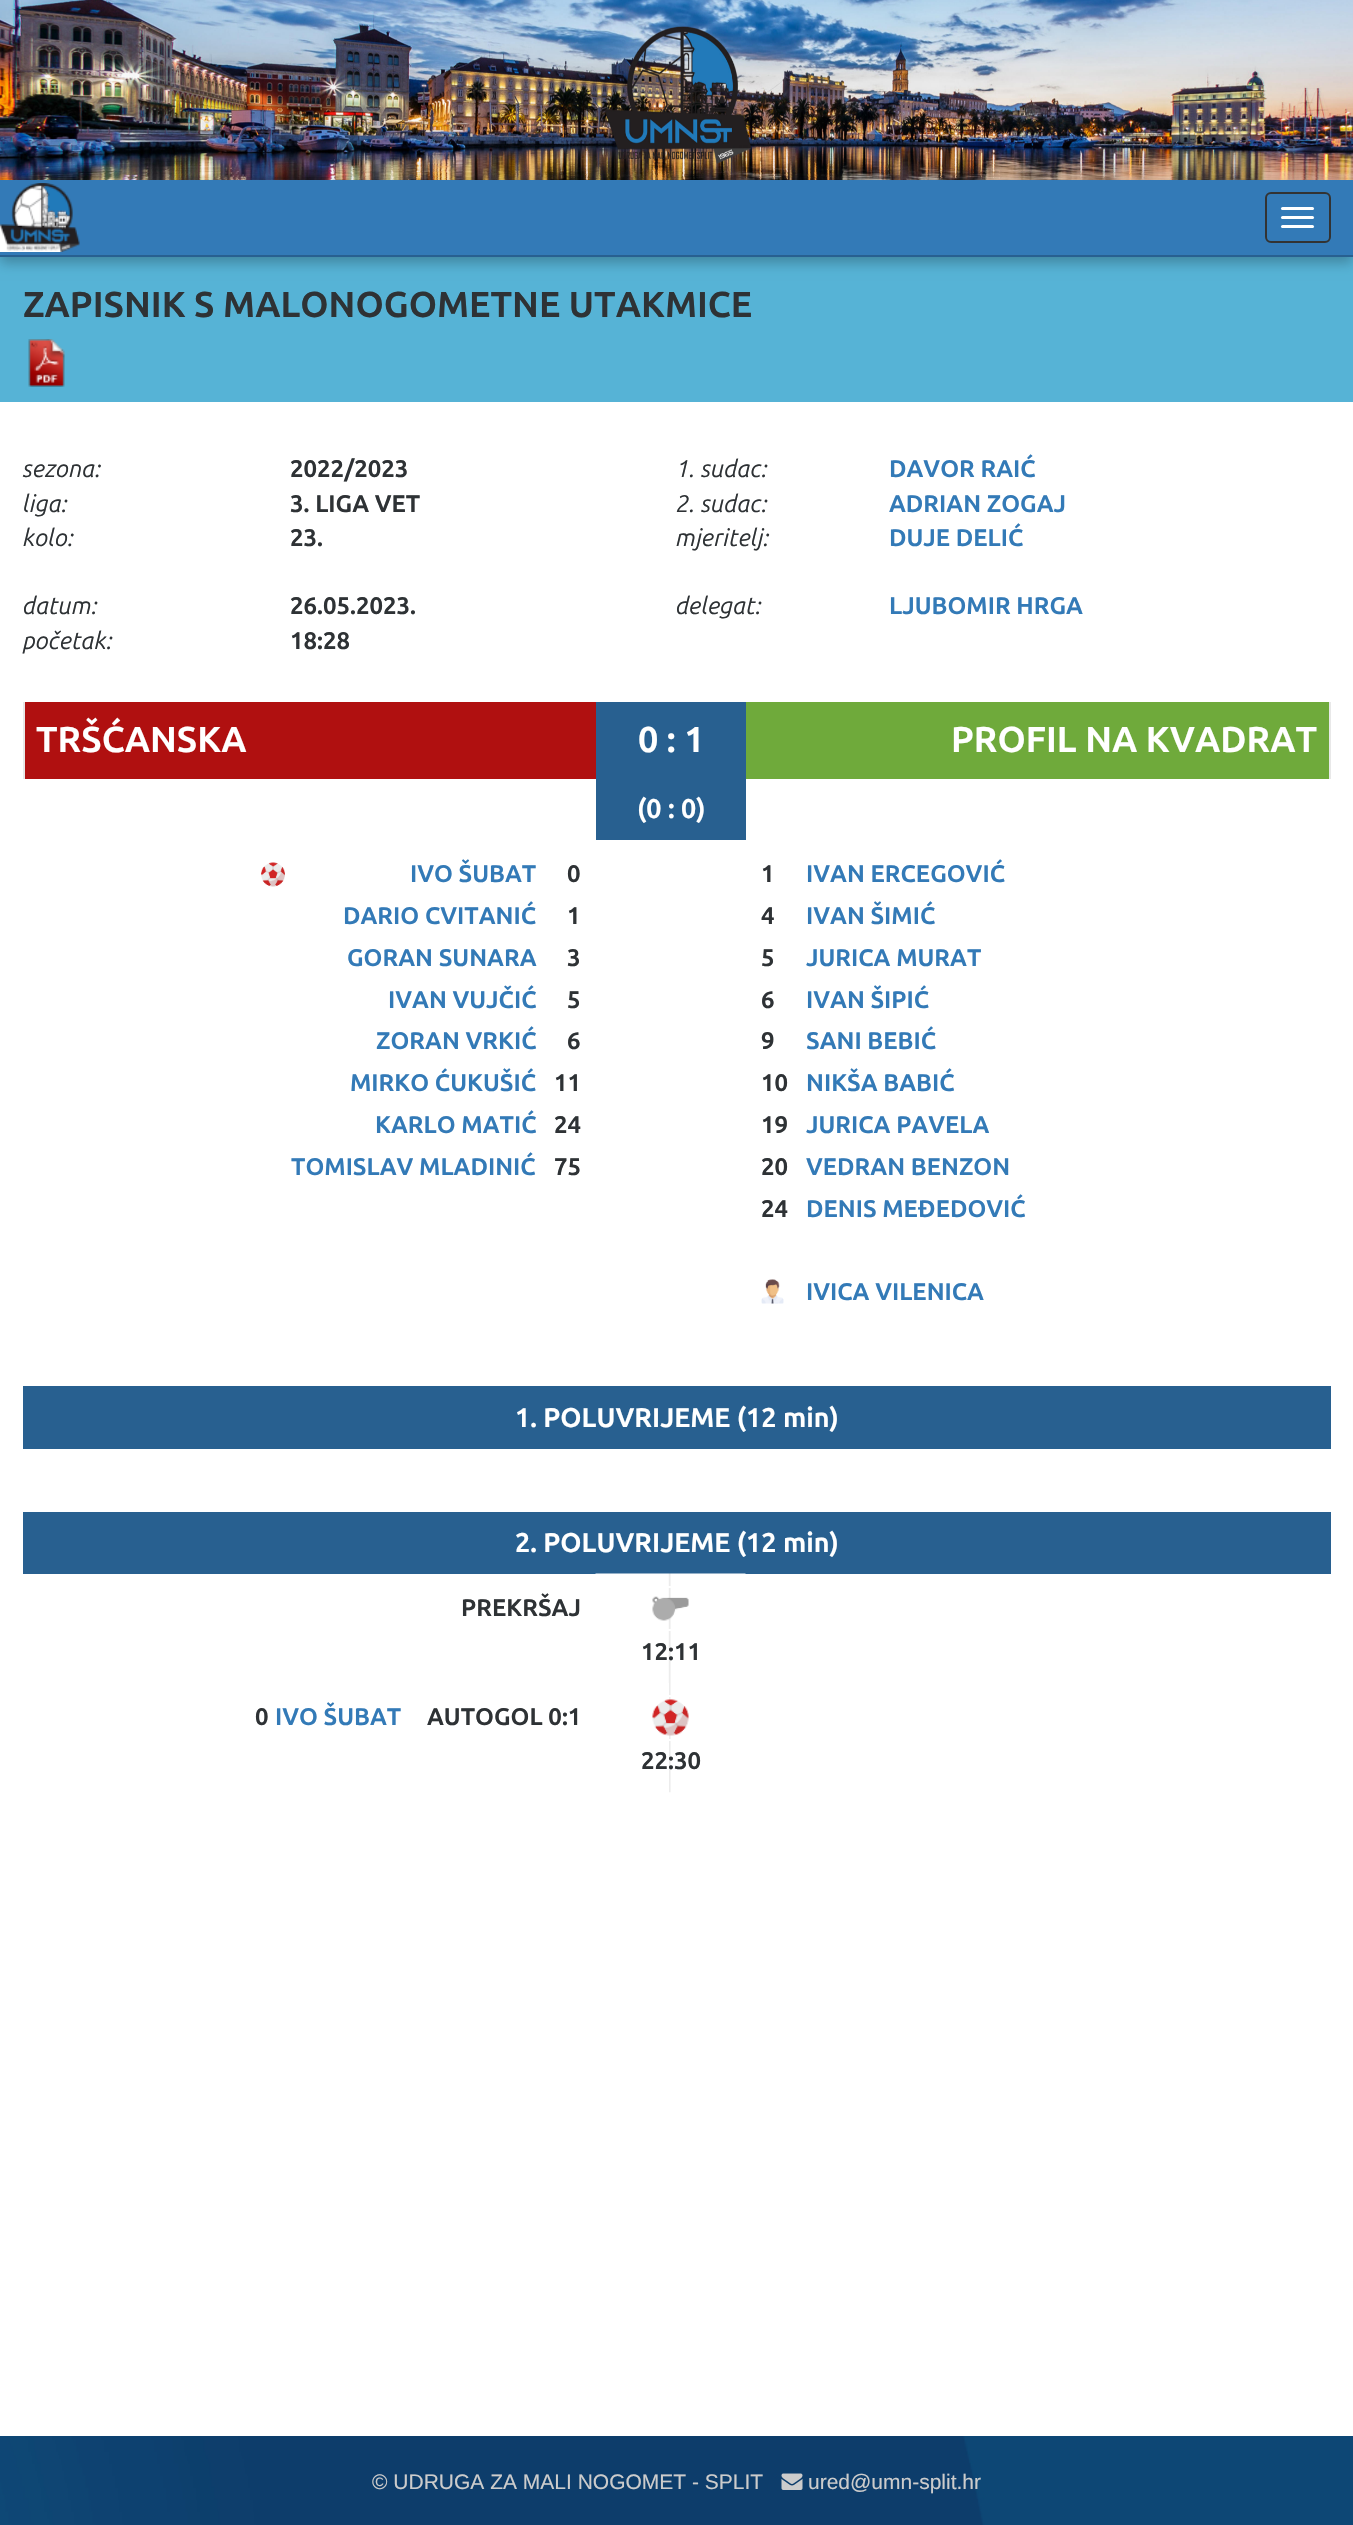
#include "include/core/SkBlurTypes.h"
#include "include/core/SkCanvas.h"
#include "include/core/SkData.h"
#include "include/core/SkFont.h"
#include "include/core/SkFontMgr.h"
#include "include/core/SkImage.h"
#include "include/core/SkMaskFilter.h"
#include "include/core/SkPaint.h"
#include "include/core/SkPathBuilder.h"
#include "include/core/SkTextBlob.h"
#include "include/effects/SkDashPathEffect.h"
#include "include/effects/SkGradientShader.h"
#include "include/utils/SkParsePath.h"

extern sk_sp<SkFontMgr> fontMgr;

static SkFont font(const char* family, int weight, float size, bool italic = false) {
    SkFontStyle style(weight, SkFontStyle::kNormal_Width,
        italic ? SkFontStyle::kItalic_Slant : SkFontStyle::kUpright_Slant);
    SkFont result(fontMgr->matchFamilyStyle(family, style), size);
    result.setSubpixel(true);
    return result;
}

static void drawLabel(SkCanvas* canvas, const char* s, float x, float y, const SkFont& font, SkColor color) {
    SkPaint ink(SkColor4f::FromColor(color));
    ink.setAntiAlias(true);
    canvas->drawString(s, x, y, font, ink);
}

static void fillRect(SkCanvas* canvas, float x, float y, float w, float h, SkColor color) {
    SkPaint ink(SkColor4f::FromColor(color));
    ink.setAntiAlias(true);
    canvas->drawRect(SkRect::MakeXYWH(x, y, w, h), ink);
}

static void fillRRect(SkCanvas* canvas, float x, float y, float w, float h, float radius, SkColor color) {
    SkPaint ink(SkColor4f::FromColor(color));
    ink.setAntiAlias(true);
    canvas->drawRoundRect(SkRect::MakeXYWH(x, y, w, h), radius, radius, ink);
}

static void drawPhoto(SkCanvas* canvas, const char* path, float x, float y, float w, float h) {
    auto image = SkImages::DeferredFromEncodedData(SkData::MakeFromFileName(path));
    canvas->drawImageRect(image, SkRect::MakeXYWH(x, y, w, h), SkSamplingOptions());
}

void draw(SkCanvas* canvas) {
    SkPaint paint;
    paint.setAntiAlias(true);
    canvas->clear(0xFFFFFFFF);
    drawPhoto(canvas, "assets/img1.png", 0, 0, 1353, 180);
    fillRect(canvas, 0, 257, 1353, 145, 0xFF56B3D6);
    paint.setColor(0x40000000);
    paint.setMaskFilter(SkMaskFilter::MakeBlur(kNormal_SkBlurStyle, 6));
    canvas->drawRect(SkRect::MakeXYWH(0, 186, 1353, 77), paint);
    paint.setMaskFilter(nullptr);
    fillRect(canvas, 0, 180, 1353, 75, 0xFF337AB7);
    fillRect(canvas, 0, 255, 1353, 2, 0xFF286090);
    drawPhoto(canvas, "assets/img2.png", 0, 183, 80, 69);
    paint.setStroke(true);
    paint.setStrokeWidth(2);
    paint.setColor(0xFF333333);
    canvas->drawRoundRect(SkRect::MakeXYWH(1266, 193, 64, 49), 5, 5, paint);
    fillRRect(canvas, 1281, 207, 33, 3, 1.5f, 0xFFFFFFFF);
    fillRRect(canvas, 1281, 216, 33, 3, 1.5f, 0xFFFFFFFF);
    fillRRect(canvas, 1281, 225, 33, 3, 1.5f, 0xFFFFFFFF);
    SkFont font1 = font("Ubuntu", 700, 36);
    drawLabel(canvas, "ZAPISNIK S MALONOGOMETNE UTAKMICE", 23, 317, font1, 0xFF2E3235);
    drawPhoto(canvas, "assets/img3.png", 28, 339, 37, 48);
    SkFont font2 = font("Ubuntu", 400, 24, true);
    drawLabel(canvas, "sezona:", 23, 477, font2, 0xFF2E3235);
    SkFont font3 = font("Ubuntu", 700, 24);
    drawLabel(canvas, "2022/2023", 290, 477, font3, 0xFF2E3235);
    drawLabel(canvas, "1. sudac:", 676, 477, font2, 0xFF2E3235);
    drawLabel(canvas, "DAVOR RAIĆ", 889, 477, font3, 0xFF337AB7);
    drawLabel(canvas, "liga:", 23, 512, font2, 0xFF2E3235);
    drawLabel(canvas, "3. LIGA VET", 290, 512, font3, 0xFF2E3235);
    drawLabel(canvas, "2. sudac:", 676, 512, font2, 0xFF2E3235);
    drawLabel(canvas, "ADRIAN ZOGAJ", 889, 512, font3, 0xFF337AB7);
    drawLabel(canvas, "kolo:", 23, 546, font2, 0xFF2E3235);
    drawLabel(canvas, "23.", 290, 546, font3, 0xFF2E3235);
    drawLabel(canvas, "mjeritelj:", 676, 546, font2, 0xFF2E3235);
    drawLabel(canvas, "DUJE DELIĆ", 889, 546, font3, 0xFF337AB7);
    drawLabel(canvas, "datum:", 23, 614, font2, 0xFF2E3235);
    drawLabel(canvas, "26.05.2023.", 290, 614, font3, 0xFF2E3235);
    drawLabel(canvas, "delegat:", 676, 614, font2, 0xFF2E3235);
    drawLabel(canvas, "LJUBOMIR HRGA", 889, 614, font3, 0xFF337AB7);
    drawLabel(canvas, "početak:", 23, 649, font2, 0xFF2E3235);
    drawLabel(canvas, "18:28", 290, 649, font3, 0xFF2E3235);
    fillRect(canvas, 25, 702, 571, 77, 0xFFB01010);
    fillRect(canvas, 23, 702, 2, 77, 0xFFE8E8E8);
    drawLabel(canvas, "TRŠĆANSKA", 36, 752, font1, 0xFFFFFFFF);
    fillRect(canvas, 596, 702, 150, 138, 0xFF286090);
    drawLabel(canvas, "0 : 1", 638, 752, font1, 0xFFFFFFFF);
    fillRect(canvas, 746, 702, 583, 77, 0xFF6FAA3B);
    fillRect(canvas, 1329, 702, 2, 77, 0xFFE8E8E8);
    drawLabel(canvas, "PROFIL NA KVADRAT", 951, 752, font1, 0xFFFFFFFF);
    SkFont font4 = font("Ubuntu", 700, 27);
    drawLabel(canvas, "(0 : 0)", 637, 818, font4, 0xFFFFFFFF);
    drawPhoto(canvas, "assets/img4.png", 261, 862, 24, 25);
    drawLabel(canvas, "IVO ŠUBAT", 410, 882, font3, 0xFF337AB7);
    drawLabel(canvas, "0", 567, 882, font3, 0xFF2E3235);
    drawLabel(canvas, "DARIO CVITANIĆ", 343, 924, font3, 0xFF337AB7);
    drawLabel(canvas, "1", 567, 924, font3, 0xFF2E3235);
    drawLabel(canvas, "GORAN SUNARA", 347, 966, font3, 0xFF337AB7);
    drawLabel(canvas, "3", 567, 966, font3, 0xFF2E3235);
    drawLabel(canvas, "IVAN VUJČIĆ", 388, 1008, font3, 0xFF337AB7);
    drawLabel(canvas, "5", 567, 1008, font3, 0xFF2E3235);
    drawLabel(canvas, "ZORAN VRKIĆ", 376, 1049, font3, 0xFF337AB7);
    drawLabel(canvas, "6", 567, 1049, font3, 0xFF2E3235);
    drawLabel(canvas, "MIRKO ĆUKUŠIĆ", 350, 1091, font3, 0xFF337AB7);
    drawLabel(canvas, "11", 554, 1091, font3, 0xFF2E3235);
    drawLabel(canvas, "KARLO MATIĆ", 375, 1133, font3, 0xFF337AB7);
    drawLabel(canvas, "24", 554, 1133, font3, 0xFF2E3235);
    drawLabel(canvas, "TOMISLAV MLADINIĆ", 291, 1175, font3, 0xFF337AB7);
    drawLabel(canvas, "75", 554, 1175, font3, 0xFF2E3235);
    drawLabel(canvas, "1", 761, 882, font3, 0xFF2E3235);
    drawLabel(canvas, "IVAN ERCEGOVIĆ", 806, 882, font3, 0xFF337AB7);
    drawLabel(canvas, "4", 761, 924, font3, 0xFF2E3235);
    drawLabel(canvas, "IVAN ŠIMIĆ", 806, 924, font3, 0xFF337AB7);
    drawLabel(canvas, "5", 761, 966, font3, 0xFF2E3235);
    drawLabel(canvas, "JURICA MURAT", 806, 966, font3, 0xFF337AB7);
    drawLabel(canvas, "6", 761, 1008, font3, 0xFF2E3235);
    drawLabel(canvas, "IVAN ŠIPIĆ", 806, 1008, font3, 0xFF337AB7);
    drawLabel(canvas, "9", 761, 1049, font3, 0xFF2E3235);
    drawLabel(canvas, "SANI BEBIĆ", 806, 1049, font3, 0xFF337AB7);
    drawLabel(canvas, "10", 761, 1091, font3, 0xFF2E3235);
    drawLabel(canvas, "NIKŠA BABIĆ", 806, 1091, font3, 0xFF337AB7);
    drawLabel(canvas, "19", 761, 1133, font3, 0xFF2E3235);
    drawLabel(canvas, "JURICA PAVELA", 806, 1133, font3, 0xFF337AB7);
    drawLabel(canvas, "20", 761, 1175, font3, 0xFF2E3235);
    drawLabel(canvas, "VEDRAN BENZON", 806, 1175, font3, 0xFF337AB7);
    drawLabel(canvas, "24", 761, 1217, font3, 0xFF2E3235);
    drawLabel(canvas, "DENIS MEĐEDOVIĆ", 806, 1217, font3, 0xFF337AB7);
    drawPhoto(canvas, "assets/img5.png", 761, 1279, 23, 25);
    drawLabel(canvas, "IVICA VILENICA", 806, 1300, font3, 0xFF337AB7);
    fillRect(canvas, 23, 1386, 1308, 63, 0xFF286090);
    drawLabel(canvas, "1. POLUVRIJEME (12 min)", 515, 1427, font4, 0xFFFFFFFF);
    fillRect(canvas, 23, 1512, 1308, 62, 0xFF286090);
    drawLabel(canvas, "2. POLUVRIJEME (12 min)", 515, 1552, font4, 0xFFFFFFFF);
    drawLabel(canvas, "PREKRŠAJ", 461, 1616, font3, 0xFF2E3235);
    drawPhoto(canvas, "assets/img6.png", 595, 1573, 151, 110);
    fillRect(canvas, 668, 1586, 3, 2, 0xFFFFFFFF);
    drawPhoto(canvas, "assets/img7.png", 652, 1596, 37, 25);
    fillRect(canvas, 668, 1629, 3, 2, 0xFFFFFFFF);
    drawLabel(canvas, "12:11", 641, 1660, font3, 0xFF2E3235);
    drawLabel(canvas, "0", 255, 1725, font3, 0xFF2E3235);
    drawLabel(canvas, "IVO ŠUBAT", 275, 1725, font3, 0xFF337AB7);
    drawLabel(canvas, "AUTOGOL 0:1", 427, 1725, font3, 0xFF2E3235);
    drawPhoto(canvas, "assets/img8.png", 669, 1683, 2, 110);
    fillRect(canvas, 669, 1695, 2, 2, 0xFFFFFFFF);
    drawPhoto(canvas, "assets/img9.png", 652, 1699, 37, 37);
    fillRect(canvas, 669, 1739, 2, 2, 0xFFFFFFFF);
    drawLabel(canvas, "22:30", 641, 1769, font3, 0xFF2E3235);
    drawPhoto(canvas, "assets/img10.png", 0, 2436, 1353, 89);
    SkFont font5 = font("Liberation Sans", 400, 21);
    drawLabel(canvas, "© UDRUGA ZA MALI NOGOMET - SPLIT", 372, 2489, font5, 0xFFCCCCCC);
    drawPhoto(canvas, "assets/img11.png", 781, 2473, 22, 17);
    drawLabel(canvas, "ured@umn-split.hr", 808, 2489, font5, 0xFFCCCCCC);
}
